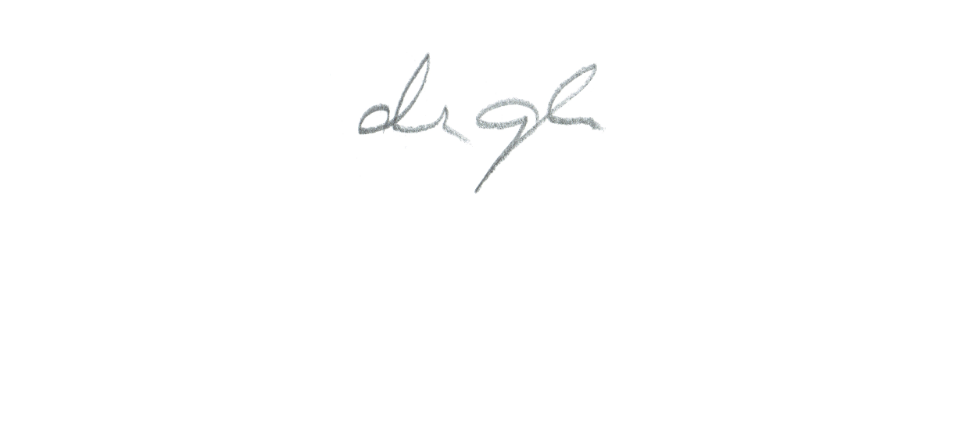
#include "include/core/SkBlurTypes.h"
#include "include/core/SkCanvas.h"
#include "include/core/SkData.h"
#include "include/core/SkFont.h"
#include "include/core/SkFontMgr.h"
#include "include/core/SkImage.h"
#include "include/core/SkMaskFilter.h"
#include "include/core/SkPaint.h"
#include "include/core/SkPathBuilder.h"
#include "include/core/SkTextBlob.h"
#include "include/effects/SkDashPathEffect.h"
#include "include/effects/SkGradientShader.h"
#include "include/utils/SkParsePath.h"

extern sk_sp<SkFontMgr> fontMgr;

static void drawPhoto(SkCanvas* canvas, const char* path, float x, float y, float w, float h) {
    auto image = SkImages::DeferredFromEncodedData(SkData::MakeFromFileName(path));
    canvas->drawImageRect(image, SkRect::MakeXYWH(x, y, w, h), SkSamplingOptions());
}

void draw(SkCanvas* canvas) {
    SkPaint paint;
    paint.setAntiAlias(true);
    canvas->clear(0xFFFFFFFF);
    drawPhoto(canvas, "assets/img1.png", 330, 52, 276, 142);
}
